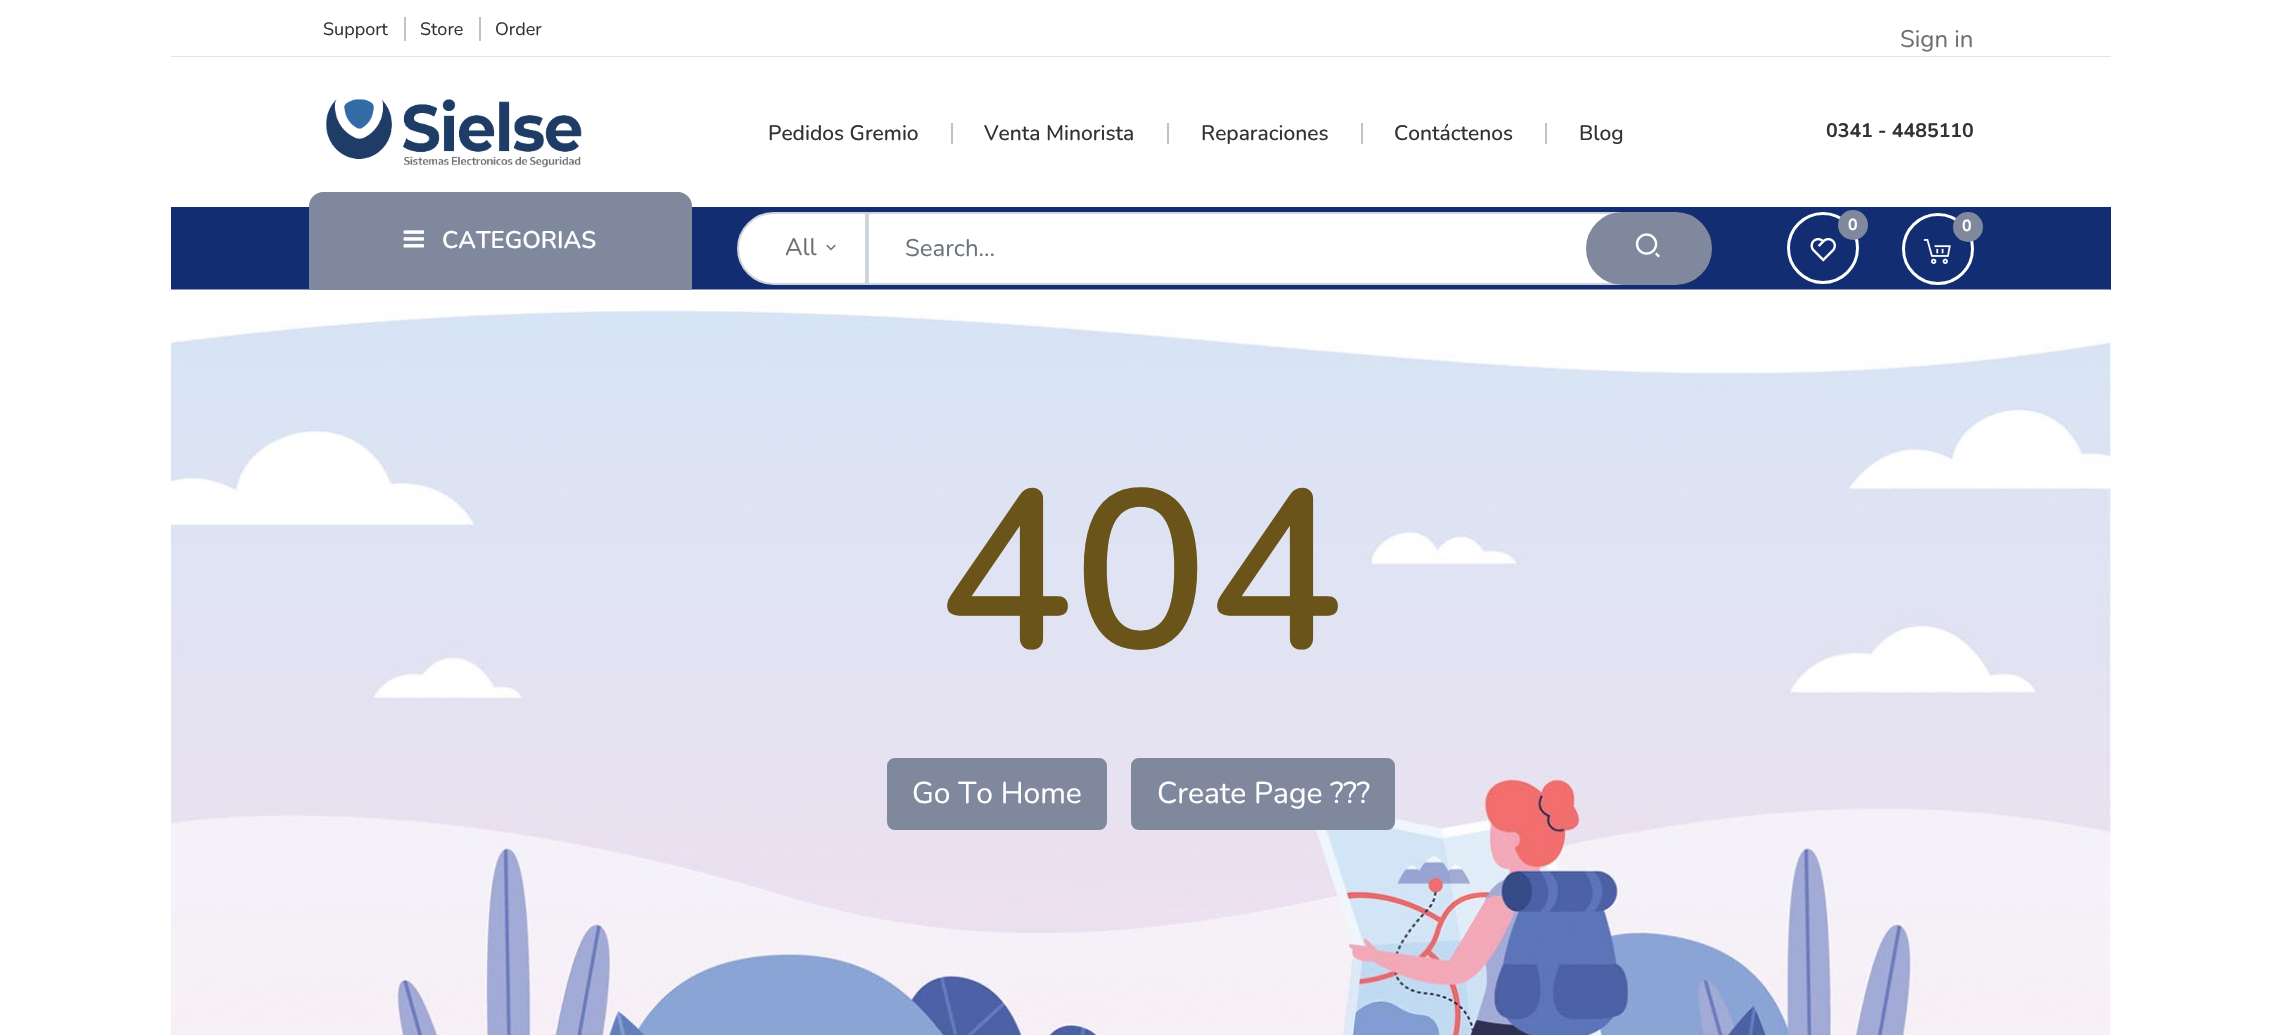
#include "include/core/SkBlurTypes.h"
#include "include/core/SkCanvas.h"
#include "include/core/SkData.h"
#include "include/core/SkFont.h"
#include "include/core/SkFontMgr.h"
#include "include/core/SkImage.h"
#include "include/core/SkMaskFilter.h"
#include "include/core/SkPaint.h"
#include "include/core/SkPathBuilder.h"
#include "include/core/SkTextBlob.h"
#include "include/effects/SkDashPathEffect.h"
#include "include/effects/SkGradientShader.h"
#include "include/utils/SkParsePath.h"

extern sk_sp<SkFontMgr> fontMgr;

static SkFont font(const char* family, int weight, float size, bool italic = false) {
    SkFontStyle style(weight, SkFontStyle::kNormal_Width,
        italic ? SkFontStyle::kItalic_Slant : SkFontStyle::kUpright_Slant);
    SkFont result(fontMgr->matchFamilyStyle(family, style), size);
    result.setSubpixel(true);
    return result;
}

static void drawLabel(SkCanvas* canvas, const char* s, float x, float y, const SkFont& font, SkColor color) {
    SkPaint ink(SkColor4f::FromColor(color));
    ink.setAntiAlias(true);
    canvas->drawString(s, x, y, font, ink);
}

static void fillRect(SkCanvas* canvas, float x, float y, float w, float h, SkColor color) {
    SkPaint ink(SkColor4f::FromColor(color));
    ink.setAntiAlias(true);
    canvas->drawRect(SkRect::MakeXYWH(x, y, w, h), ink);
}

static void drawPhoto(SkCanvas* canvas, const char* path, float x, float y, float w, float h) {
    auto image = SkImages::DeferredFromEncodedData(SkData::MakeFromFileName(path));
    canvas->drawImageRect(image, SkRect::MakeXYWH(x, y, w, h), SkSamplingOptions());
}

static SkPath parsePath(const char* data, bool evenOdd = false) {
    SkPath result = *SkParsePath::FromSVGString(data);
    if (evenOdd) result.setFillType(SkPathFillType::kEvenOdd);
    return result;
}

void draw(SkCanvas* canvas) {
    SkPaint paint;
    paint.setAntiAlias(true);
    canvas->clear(0xFFFFFFFF);
    fillRect(canvas, 171, 56, 1940, 1, 0xFFE5E5E5);
    SkFont font1 = font("Nunito", 400, 18);
    drawLabel(canvas, "Support", 323, 35, font1, 0xFF333333);
    fillRect(canvas, 404, 17, 2, 24, 0xFFC2C2C2);
    drawLabel(canvas, "Store", 420, 35, font1, 0xFF333333);
    fillRect(canvas, 479, 17, 2, 24, 0xFFC2C2C2);
    drawLabel(canvas, "Order", 495, 35, font1, 0xFF333333);
    SkFont font2 = font("Nunito", 400, 24);
    drawLabel(canvas, "Sign in", 1900, 47, font2, 0xFF6D7175);
    drawPhoto(canvas, "assets/img1.png", 326, 99, 256, 69);
    fillRect(canvas, 951, 123, 2, 21, 0xFFC2C2C2);
    SkFont font3 = font("Nunito", 500, 21);
    drawLabel(canvas, "Pedidos Gremio", 768, 140, font3, 0xFF333333);
    fillRect(canvas, 1167, 123, 2, 21, 0xFFC2C2C2);
    drawLabel(canvas, "Venta Minorista", 984, 140, font3, 0xFF333333);
    fillRect(canvas, 1361, 123, 2, 21, 0xFFC2C2C2);
    drawLabel(canvas, "Reparaciones", 1201, 140, font3, 0xFF333333);
    fillRect(canvas, 1545, 123, 2, 21, 0xFFC2C2C2);
    drawLabel(canvas, "Contáctenos", 1394, 140, font3, 0xFF333333);
    drawLabel(canvas, "Blog", 1579, 140, font3, 0xFF333333);
    SkFont font4 = font("Nunito", 700, 19.5f);
    drawLabel(canvas, "0341 - 4485110", 1826, 137, font4, 0xFF333333);
    fillRect(canvas, 171, 207, 1940, 83, 0xFF122D72);
    paint.setStroke(true);
    paint.setStrokeWidth(3);
    paint.setColor(0xFFFFFFFF);
    canvas->drawCircle(1823, 248, 34.5f, paint);
    paint.setStroke(false);
    paint.setColor(0xFF80889D);
    canvas->drawCircle(1853, 225, 15, paint);
    SkFont font5 = font("Nunito", 700, 16);
    drawLabel(canvas, "0", 1848, 230, font5, 0xFFFFFFFF);
    drawPhoto(canvas, "assets/img2.png", 1810, 237, 26, 25);
    paint.setStroke(true);
    paint.setColor(0xFFFFFFFF);
    canvas->drawCircle(1938, 249, 34.5f, paint);
    paint.setStroke(false);
    paint.setColor(0xFF80889D);
    canvas->drawCircle(1968, 227, 15, paint);
    drawLabel(canvas, "0", 1962, 231, font5, 0xFFFFFFFF);
    drawPhoto(canvas, "assets/img3.png", 1923, 239, 28, 25);
    drawPhoto(canvas, "assets/img7.png", 171, 289, 1940, 746);
    canvas->drawPath(parsePath("M323 192H678C685.5 192 692 198.5 692 206V290H309V206C309 198.5 315.5 192 323 192Z"), paint);
    drawPhoto(canvas, "assets/img4.png", 403, 230, 22, 18);
    SkFont font6 = font("Nunito", 600, 24);
    drawLabel(canvas, "CATEGORIAS", 442, 248, font6, 0xFFFFFFFF);
    paint.setColor(0xFFFFFFFF);
    canvas->drawPath(parsePath("M773.5 213H866V284H773.5C754 284 738 268 738 248.5C738 229 754 213 773.5 213Z"), paint);
    paint.setStroke(true);
    paint.setStrokeWidth(2);
    paint.setColor(0xFFCED4DA);
    canvas->drawPath(parsePath("M773.5 213H866V284H773.5C754 284 738 268 738 248.5C738 229 754 213 773.5 213Z"), paint);
    drawLabel(canvas, "All", 785, 255, font2, 0xFF6D7175);
    drawPhoto(canvas, "assets/img5.png", 826, 244, 10, 7);
    paint.setStroke(false);
    paint.setColor(0xFFFFFFFF);
    canvas->drawPath(parsePath("M868 213H1652.5C1672 213 1688 229 1688 248.5C1688 268 1672 284 1652.5 284H868Z"), paint);
    paint.setStroke(true);
    paint.setColor(0xFFCED4DA);
    canvas->drawPath(parsePath("M868 213H1652.5C1672 213 1688 229 1688 248.5C1688 268 1672 284 1652.5 284H868Z"), paint);
    drawLabel(canvas, "Search...", 905, 256, font2, 0xFF6C757D);
    paint.setStroke(false);
    paint.setColor(0xFF80889D);
    canvas->drawRoundRect(SkRect::MakeXYWH(1587, 213, 124, 71), 35.5f, 35.5f, paint);
    paint.setStroke(true);
    canvas->drawRoundRect(SkRect::MakeXYWH(1587, 213, 124, 71), 35.5f, 35.5f, paint);
    drawPhoto(canvas, "assets/img6.png", 1635, 233, 25, 25);
    SkFont font7 = font("Nunito", 600, 225);
    drawLabel(canvas, "404", 938, 648, font7, 0xFF6B5419);
    paint.setStroke(false);
    canvas->drawRoundRect(SkRect::MakeXYWH(888, 759, 218, 70), 7, 7, paint);
    paint.setStroke(true);
    canvas->drawRoundRect(SkRect::MakeXYWH(888, 759, 218, 70), 7, 7, paint);
    SkFont font8 = font("Nunito", 400, 30);
    drawLabel(canvas, "Go To Home", 912, 803, font8, 0xFFFFFFFF);
    paint.setStroke(false);
    canvas->drawRoundRect(SkRect::MakeXYWH(1132, 759, 262, 70), 7, 7, paint);
    paint.setStroke(true);
    canvas->drawRoundRect(SkRect::MakeXYWH(1132, 759, 262, 70), 7, 7, paint);
    drawLabel(canvas, "Create Page ?\077?", 1157, 803, font8, 0xFFFFFFFF);
}
